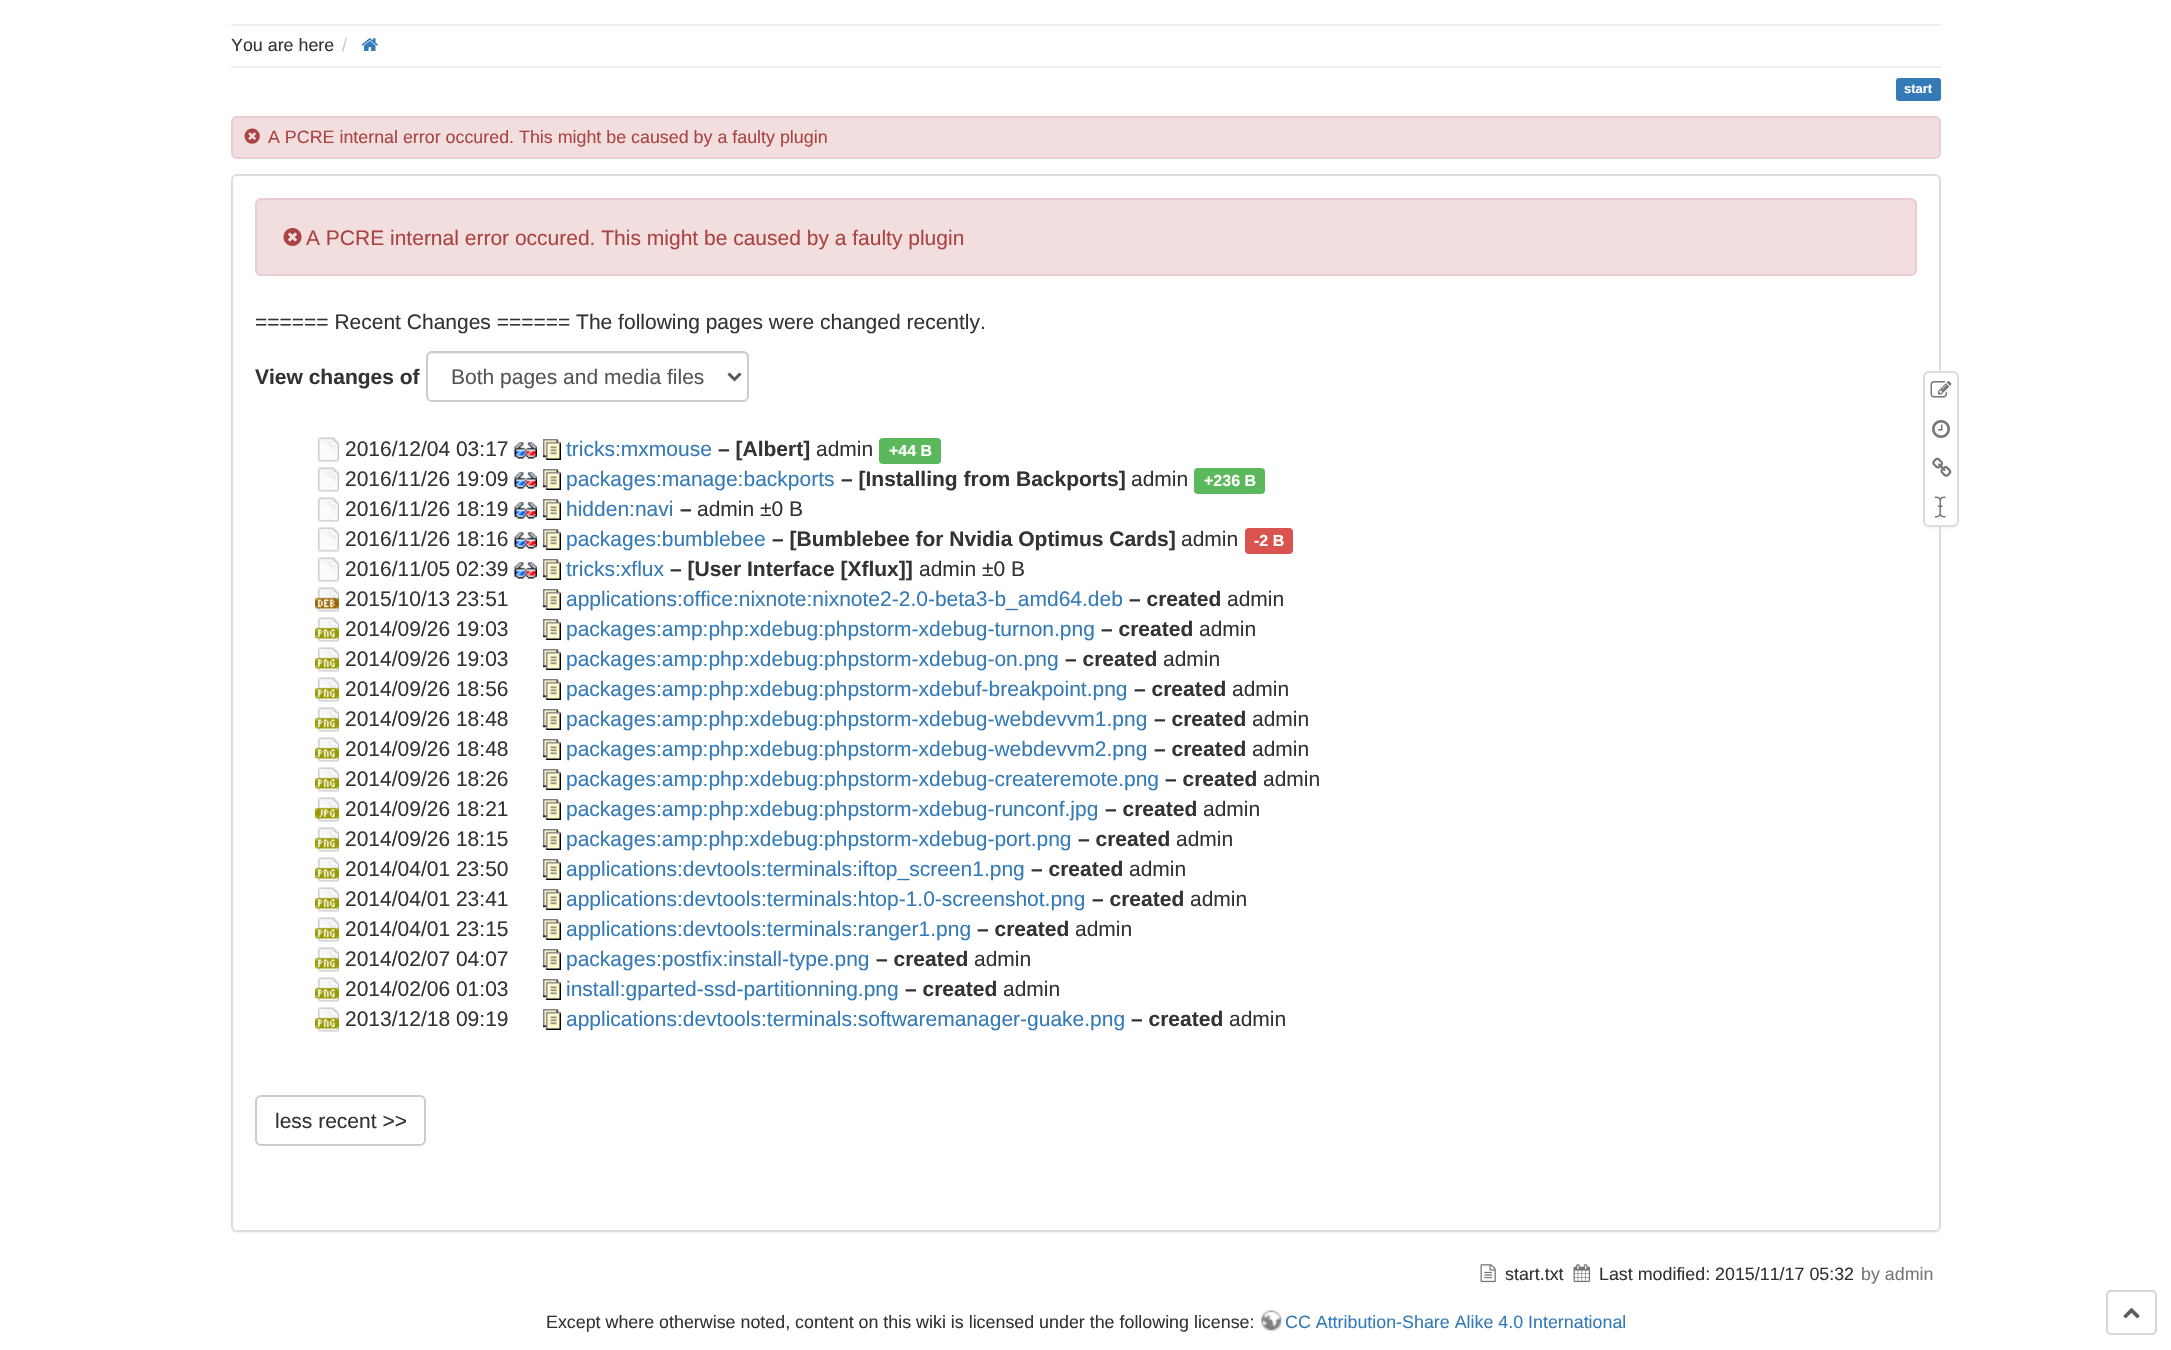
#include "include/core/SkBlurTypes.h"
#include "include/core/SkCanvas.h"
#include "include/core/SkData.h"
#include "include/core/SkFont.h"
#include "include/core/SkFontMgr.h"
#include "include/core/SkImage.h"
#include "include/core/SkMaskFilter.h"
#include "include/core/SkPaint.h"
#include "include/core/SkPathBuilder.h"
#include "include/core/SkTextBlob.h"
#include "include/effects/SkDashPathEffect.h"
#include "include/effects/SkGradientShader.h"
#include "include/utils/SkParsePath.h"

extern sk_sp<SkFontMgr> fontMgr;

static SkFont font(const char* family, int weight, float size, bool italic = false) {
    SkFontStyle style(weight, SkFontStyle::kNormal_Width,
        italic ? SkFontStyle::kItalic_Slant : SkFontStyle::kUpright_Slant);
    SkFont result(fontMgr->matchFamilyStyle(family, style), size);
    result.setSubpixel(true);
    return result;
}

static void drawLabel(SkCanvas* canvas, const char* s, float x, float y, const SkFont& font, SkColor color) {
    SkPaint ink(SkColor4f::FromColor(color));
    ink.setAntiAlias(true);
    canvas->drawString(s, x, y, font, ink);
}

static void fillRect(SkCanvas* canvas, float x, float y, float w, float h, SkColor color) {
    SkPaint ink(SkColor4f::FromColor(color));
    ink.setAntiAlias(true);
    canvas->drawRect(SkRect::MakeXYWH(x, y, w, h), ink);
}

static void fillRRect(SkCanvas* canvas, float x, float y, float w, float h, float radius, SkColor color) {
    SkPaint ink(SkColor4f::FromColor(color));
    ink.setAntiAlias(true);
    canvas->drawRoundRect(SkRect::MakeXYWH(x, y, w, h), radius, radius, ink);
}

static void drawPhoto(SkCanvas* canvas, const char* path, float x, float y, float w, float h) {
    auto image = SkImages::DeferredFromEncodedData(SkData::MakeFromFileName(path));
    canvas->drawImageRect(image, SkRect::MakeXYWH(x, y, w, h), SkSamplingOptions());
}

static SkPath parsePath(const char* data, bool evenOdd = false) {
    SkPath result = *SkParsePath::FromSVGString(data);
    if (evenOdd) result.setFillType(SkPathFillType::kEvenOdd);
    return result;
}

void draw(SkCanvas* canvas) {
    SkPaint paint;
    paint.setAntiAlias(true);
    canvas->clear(0xFFFFFFFF);
    fillRect(canvas, 231, 24, 1710, 2, 0xFFEEEEEE);
    SkFont font1 = font("Liberation Sans", 400, 17.85f);
    drawLabel(canvas, "You are here", 231, 51, font1, 0xFF333333);
    drawLabel(canvas, "/", 342, 51, font1, 0xFFCCCCCC);
    drawPhoto(canvas, "assets/img1.png", 361, 38, 17, 13);
    fillRect(canvas, 231, 66, 1710, 2, 0xFFEEEEEE);
    fillRRect(canvas, 1896, 78, 45, 23, 3, 0xFF337AB7);
    SkFont font2 = font("Liberation Sans", 700, 13);
    drawLabel(canvas, "start", 1904, 93, font2, 0xFFFFFFFF);
    paint.setColor(0xFFF2DEDE);
    canvas->drawRoundRect(SkRect::MakeXYWH(232, 117, 1708, 41), 5, 5, paint);
    paint.setStroke(true);
    paint.setStrokeWidth(2);
    paint.setColor(0xFFEBCCD1);
    canvas->drawRoundRect(SkRect::MakeXYWH(232, 117, 1708, 41), 5, 5, paint);
    drawPhoto(canvas, "assets/img2.png", 244, 128, 16, 16);
    drawLabel(canvas, "A PCRE internal error occured. This might be caused by a faulty plugin", 268, 143, font1, 0xFFA94442);
    paint.setStroke(false);
    paint.setColor(0x0D000000);
    paint.setMaskFilter(SkMaskFilter::MakeBlur(kNormal_SkBlurStyle, 1));
    canvas->drawRoundRect(SkRect::MakeXYWH(231, 176, 1710, 1057), 6, 6, paint);
    paint.setMaskFilter(nullptr);
    paint.setColor(0xFFFFFFFF);
    canvas->drawRoundRect(SkRect::MakeXYWH(232, 175, 1708, 1056), 5, 5, paint);
    paint.setStroke(true);
    paint.setColor(0xFFDDDDDD);
    canvas->drawRoundRect(SkRect::MakeXYWH(232, 175, 1708, 1056), 5, 5, paint);
    paint.setStroke(false);
    paint.setColor(0xFFF2DEDE);
    canvas->drawRoundRect(SkRect::MakeXYWH(256, 199, 1660, 76), 5, 5, paint);
    paint.setStroke(true);
    paint.setColor(0xFFEBCCD1);
    canvas->drawRoundRect(SkRect::MakeXYWH(256, 199, 1660, 76), 5, 5, paint);
    drawPhoto(canvas, "assets/img3.png", 283, 228, 19, 18);
    SkFont font3 = font("Liberation Sans", 400, 21);
    drawLabel(canvas, "A PCRE internal error occured. This might be caused by a faulty plugin", 306, 245, font3, 0xFFA94442);
    drawLabel(canvas, "====== Recent Changes ====== The following pages were changed recently.", 255, 329, font3, 0xFF333333);
    SkFont font4 = font("Liberation Sans", 700, 21);
    drawLabel(canvas, "View changes of", 255, 384, font4, 0xFF333333);
    paint.setStroke(false);
    paint.setColor(0xFFECECEC);
    canvas->drawPath(parsePath("M432 354H742C745 354 747 356 747 358C747 355 745 353 742 353H433C430 353 428 355 428 358C428 356 430 354 432 354Z"), paint);
    paint.setStroke(true);
    paint.setColor(0xFFCCCCCC);
    canvas->drawRoundRect(SkRect::MakeXYWH(427, 352, 321, 49), 5, 5, paint);
    paint.setStrokeWidth(3);
    paint.setColor(0xFF555555);
    canvas->drawPath(parsePath("M728.5 373.5L734.5 379.5L740.5 373.5"), paint);
    drawLabel(canvas, "Both pages and media files", 451, 384, font3, 0xFF555555);
    drawPhoto(canvas, "assets/img4.png", 317, 437, 22, 25);
    drawLabel(canvas, "2016/12/04 03:17", 345, 456, font3, 0xFF333333);
    drawPhoto(canvas, "assets/img5.png", 514, 442, 23, 17);
    drawPhoto(canvas, "assets/img6.png", 543, 439, 18, 21);
    drawLabel(canvas, "tricks:mxmouse", 566, 456, font3, 0xFF337AB7);
    drawLabel(canvas, "– [Albert]", 718, 456, font4, 0xFF333333);
    drawLabel(canvas, "admin", 816, 456, font3, 0xFF333333);
    fillRRect(canvas, 879, 438, 62, 26, 4, 0xFF5CB85C);
    SkFont font5 = font("Liberation Sans", 700, 16);
    drawLabel(canvas, "+44 B", 889, 456, font5, 0xFFFFFFFF);
    drawPhoto(canvas, "assets/img4.png", 317, 467, 22, 25);
    drawLabel(canvas, "2016/11/26 19:09", 345, 486, font3, 0xFF333333);
    drawPhoto(canvas, "assets/img5.png", 514, 472, 23, 17);
    drawPhoto(canvas, "assets/img6.png", 543, 469, 18, 21);
    drawLabel(canvas, "packages:manage:backports", 566, 486, font3, 0xFF337AB7);
    drawLabel(canvas, "– [Installing from Backports]", 841, 486, font4, 0xFF333333);
    drawLabel(canvas, "admin", 1131, 486, font3, 0xFF333333);
    fillRRect(canvas, 1194, 468, 71, 26, 4, 0xFF5CB85C);
    drawLabel(canvas, "+236 B", 1204, 486, font5, 0xFFFFFFFF);
    drawPhoto(canvas, "assets/img4.png", 317, 497, 22, 25);
    drawLabel(canvas, "2016/11/26 18:19", 345, 516, font3, 0xFF333333);
    drawPhoto(canvas, "assets/img5.png", 514, 502, 23, 17);
    drawPhoto(canvas, "assets/img6.png", 543, 499, 18, 21);
    drawLabel(canvas, "hidden:navi", 566, 516, font3, 0xFF337AB7);
    drawLabel(canvas, "–", 680, 516, font4, 0xFF333333);
    drawLabel(canvas, "admin ±0 B", 697, 516, font3, 0xFF333333);
    drawPhoto(canvas, "assets/img4.png", 317, 527, 22, 25);
    drawLabel(canvas, "2016/11/26 18:16", 345, 546, font3, 0xFF333333);
    drawPhoto(canvas, "assets/img5.png", 514, 532, 23, 17);
    drawPhoto(canvas, "assets/img6.png", 543, 529, 18, 21);
    drawLabel(canvas, "packages:bumblebee", 566, 546, font3, 0xFF337AB7);
    drawLabel(canvas, "– [Bumblebee for Nvidia Optimus Cards]", 772, 546, font4, 0xFF333333);
    drawLabel(canvas, "admin", 1181, 546, font3, 0xFF333333);
    fillRRect(canvas, 1245, 528, 48, 26, 4, 0xFFD9534F);
    drawLabel(canvas, "-2 B", 1254, 546, font5, 0xFFFFFFFF);
    drawPhoto(canvas, "assets/img4.png", 317, 557, 22, 25);
    drawLabel(canvas, "2016/11/05 02:39", 345, 576, font3, 0xFF333333);
    drawPhoto(canvas, "assets/img5.png", 514, 562, 23, 17);
    drawPhoto(canvas, "assets/img6.png", 543, 559, 18, 21);
    drawLabel(canvas, "tricks:xflux", 566, 576, font3, 0xFF337AB7);
    drawLabel(canvas, "– [User Interface [Xflux]]", 670, 576, font4, 0xFF333333);
    drawLabel(canvas, "admin ±0 B", 919, 576, font3, 0xFF333333);
    drawPhoto(canvas, "assets/img7.png", 315, 587, 24, 25);
    drawLabel(canvas, "2015/10/13 23:51", 345, 606, font3, 0xFF333333);
    drawPhoto(canvas, "assets/img6.png", 543, 589, 18, 21);
    drawLabel(canvas, "applications:office:nixnote:nixnote2-2.0-beta3-b_amd64.deb", 566, 606, font3, 0xFF337AB7);
    drawLabel(canvas, "– created", 1129, 606, font4, 0xFF333333);
    drawLabel(canvas, "admin", 1227, 606, font3, 0xFF333333);
    drawPhoto(canvas, "assets/img8.png", 315, 617, 24, 25);
    drawLabel(canvas, "2014/09/26 19:03", 345, 636, font3, 0xFF333333);
    drawPhoto(canvas, "assets/img6.png", 543, 619, 18, 21);
    drawLabel(canvas, "packages:amp:php:xdebug:phpstorm-xdebug-turnon.png", 566, 636, font3, 0xFF337AB7);
    drawLabel(canvas, "– created", 1101, 636, font4, 0xFF333333);
    drawLabel(canvas, "admin", 1199, 636, font3, 0xFF333333);
    drawPhoto(canvas, "assets/img8.png", 315, 647, 24, 25);
    drawLabel(canvas, "2014/09/26 19:03", 345, 666, font3, 0xFF333333);
    drawPhoto(canvas, "assets/img6.png", 543, 649, 18, 21);
    drawLabel(canvas, "packages:amp:php:xdebug:phpstorm-xdebug-on.png", 566, 666, font3, 0xFF337AB7);
    drawLabel(canvas, "– created", 1065, 666, font4, 0xFF333333);
    drawLabel(canvas, "admin", 1163, 666, font3, 0xFF333333);
    drawPhoto(canvas, "assets/img8.png", 315, 677, 24, 25);
    drawLabel(canvas, "2014/09/26 18:56", 345, 696, font3, 0xFF333333);
    drawPhoto(canvas, "assets/img6.png", 543, 679, 18, 21);
    drawLabel(canvas, "packages:amp:php:xdebug:phpstorm-xdebuf-breakpoint.png", 566, 696, font3, 0xFF337AB7);
    drawLabel(canvas, "– created", 1134, 696, font4, 0xFF333333);
    drawLabel(canvas, "admin", 1232, 696, font3, 0xFF333333);
    drawPhoto(canvas, "assets/img8.png", 315, 707, 24, 25);
    drawLabel(canvas, "2014/09/26 18:48", 345, 726, font3, 0xFF333333);
    drawPhoto(canvas, "assets/img6.png", 543, 709, 18, 21);
    drawLabel(canvas, "packages:amp:php:xdebug:phpstorm-xdebug-webdevvm1.png", 566, 726, font3, 0xFF337AB7);
    drawLabel(canvas, "– created", 1154, 726, font4, 0xFF333333);
    drawLabel(canvas, "admin", 1252, 726, font3, 0xFF333333);
    drawPhoto(canvas, "assets/img8.png", 315, 737, 24, 25);
    drawLabel(canvas, "2014/09/26 18:48", 345, 756, font3, 0xFF333333);
    drawPhoto(canvas, "assets/img6.png", 543, 739, 18, 21);
    drawLabel(canvas, "packages:amp:php:xdebug:phpstorm-xdebug-webdevvm2.png", 566, 756, font3, 0xFF337AB7);
    drawLabel(canvas, "– created", 1154, 756, font4, 0xFF333333);
    drawLabel(canvas, "admin", 1252, 756, font3, 0xFF333333);
    drawPhoto(canvas, "assets/img8.png", 315, 767, 24, 25);
    drawLabel(canvas, "2014/09/26 18:26", 345, 786, font3, 0xFF333333);
    drawPhoto(canvas, "assets/img6.png", 543, 769, 18, 21);
    drawLabel(canvas, "packages:amp:php:xdebug:phpstorm-xdebug-createremote.png", 566, 786, font3, 0xFF337AB7);
    drawLabel(canvas, "– created", 1165, 786, font4, 0xFF333333);
    drawLabel(canvas, "admin", 1263, 786, font3, 0xFF333333);
    drawPhoto(canvas, "assets/img9.png", 315, 797, 24, 25);
    drawLabel(canvas, "2014/09/26 18:21", 345, 816, font3, 0xFF333333);
    drawPhoto(canvas, "assets/img6.png", 543, 799, 18, 21);
    drawLabel(canvas, "packages:amp:php:xdebug:phpstorm-xdebug-runconf.jpg", 566, 816, font3, 0xFF337AB7);
    drawLabel(canvas, "– created", 1105, 816, font4, 0xFF333333);
    drawLabel(canvas, "admin", 1203, 816, font3, 0xFF333333);
    drawPhoto(canvas, "assets/img8.png", 315, 827, 24, 25);
    drawLabel(canvas, "2014/09/26 18:15", 345, 846, font3, 0xFF333333);
    drawPhoto(canvas, "assets/img6.png", 543, 829, 18, 21);
    drawLabel(canvas, "packages:amp:php:xdebug:phpstorm-xdebug-port.png", 566, 846, font3, 0xFF337AB7);
    drawLabel(canvas, "– created", 1078, 846, font4, 0xFF333333);
    drawLabel(canvas, "admin", 1176, 846, font3, 0xFF333333);
    drawPhoto(canvas, "assets/img8.png", 315, 857, 24, 25);
    drawLabel(canvas, "2014/04/01 23:50", 345, 876, font3, 0xFF333333);
    drawPhoto(canvas, "assets/img6.png", 543, 859, 18, 21);
    drawLabel(canvas, "applications:devtools:terminals:iftop_screen1.png", 566, 876, font3, 0xFF337AB7);
    drawLabel(canvas, "– created", 1031, 876, font4, 0xFF333333);
    drawLabel(canvas, "admin", 1129, 876, font3, 0xFF333333);
    drawPhoto(canvas, "assets/img8.png", 315, 887, 24, 25);
    drawLabel(canvas, "2014/04/01 23:41", 345, 906, font3, 0xFF333333);
    drawPhoto(canvas, "assets/img6.png", 543, 889, 18, 21);
    drawLabel(canvas, "applications:devtools:terminals:htop-1.0-screenshot.png", 566, 906, font3, 0xFF337AB7);
    drawLabel(canvas, "– created", 1092, 906, font4, 0xFF333333);
    drawLabel(canvas, "admin", 1190, 906, font3, 0xFF333333);
    drawPhoto(canvas, "assets/img8.png", 315, 917, 24, 25);
    drawLabel(canvas, "2014/04/01 23:15", 345, 936, font3, 0xFF333333);
    drawPhoto(canvas, "assets/img6.png", 543, 919, 18, 21);
    drawLabel(canvas, "applications:devtools:terminals:ranger1.png", 566, 936, font3, 0xFF337AB7);
    drawLabel(canvas, "– created", 977, 936, font4, 0xFF333333);
    drawLabel(canvas, "admin", 1075, 936, font3, 0xFF333333);
    drawPhoto(canvas, "assets/img8.png", 315, 947, 24, 25);
    drawLabel(canvas, "2014/02/07 04:07", 345, 966, font3, 0xFF333333);
    drawPhoto(canvas, "assets/img6.png", 543, 949, 18, 21);
    drawLabel(canvas, "packages:postfix:install-type.png", 566, 966, font3, 0xFF337AB7);
    drawLabel(canvas, "– created", 876, 966, font4, 0xFF333333);
    drawLabel(canvas, "admin", 974, 966, font3, 0xFF333333);
    drawPhoto(canvas, "assets/img8.png", 315, 977, 24, 25);
    drawLabel(canvas, "2014/02/06 01:03", 345, 996, font3, 0xFF333333);
    drawPhoto(canvas, "assets/img6.png", 543, 979, 18, 21);
    drawLabel(canvas, "install:gparted-ssd-partitionning.png", 566, 996, font3, 0xFF337AB7);
    drawLabel(canvas, "– created", 905, 996, font4, 0xFF333333);
    drawLabel(canvas, "admin", 1003, 996, font3, 0xFF333333);
    drawPhoto(canvas, "assets/img8.png", 315, 1007, 24, 25);
    drawLabel(canvas, "2013/12/18 09:19", 345, 1026, font3, 0xFF333333);
    drawPhoto(canvas, "assets/img6.png", 543, 1009, 18, 21);
    drawLabel(canvas, "applications:devtools:terminals:softwaremanager-guake.png", 566, 1026, font3, 0xFF337AB7);
    drawLabel(canvas, "– created", 1131, 1026, font4, 0xFF333333);
    drawLabel(canvas, "admin", 1229, 1026, font3, 0xFF333333);
    paint.setStrokeWidth(2);
    paint.setColor(0xFFCCCCCC);
    canvas->drawRoundRect(SkRect::MakeXYWH(256, 1096, 169, 49), 5, 5, paint);
    drawLabel(canvas, "less recent >>", 275, 1128, font3, 0xFF333333);
    paint.setStroke(false);
    paint.setColor(0x0D000000);
    paint.setMaskFilter(SkMaskFilter::MakeBlur(kNormal_SkBlurStyle, 1));
    canvas->drawRoundRect(SkRect::MakeXYWH(1923, 372, 36, 156), 6, 6, paint);
    paint.setMaskFilter(nullptr);
    paint.setColor(0xFFFFFFFF);
    canvas->drawRoundRect(SkRect::MakeXYWH(1924, 372, 34, 154), 5, 5, paint);
    paint.setStroke(true);
    paint.setColor(0xFFDDDDDD);
    canvas->drawRoundRect(SkRect::MakeXYWH(1924, 372, 34, 154), 5, 5, paint);
    drawPhoto(canvas, "assets/img10.png", 1930, 381, 22, 17);
    drawPhoto(canvas, "assets/img11.png", 1932, 420, 18, 18);
    drawPhoto(canvas, "assets/img12.png", 1932, 457, 20, 20);
    drawPhoto(canvas, "assets/img13.png", 1935, 496, 11, 22);
    drawPhoto(canvas, "assets/img14.png", 1480, 1264, 16, 19);
    drawLabel(canvas, "start.txt", 1505, 1280, font1, 0xFF333333);
    drawPhoto(canvas, "assets/img15.png", 1573, 1264, 18, 19);
    drawLabel(canvas, "Last modified: 2015/11/17 05:32", 1599, 1280, font1, 0xFF333333);
    drawLabel(canvas, "by admin", 1861, 1280, font1, 0xFF777777);
    drawLabel(canvas, "Except where otherwise noted, content on this wiki is licensed under the following license:", 546, 1328, font1, 0xFF333333);
    drawPhoto(canvas, "assets/img16.png", 1261, 1310, 21, 22);
    drawLabel(canvas, "CC Attribution-Share Alike 4.0 International", 1285, 1328, font1, 0xFF337AB7);
    paint.setColor(0xFFD6D6D6);
    canvas->drawRoundRect(SkRect::MakeXYWH(2107, 1291, 49, 43), 4, 4, paint);
    drawPhoto(canvas, "assets/img17.png", 2123, 1308, 17, 11);
}
